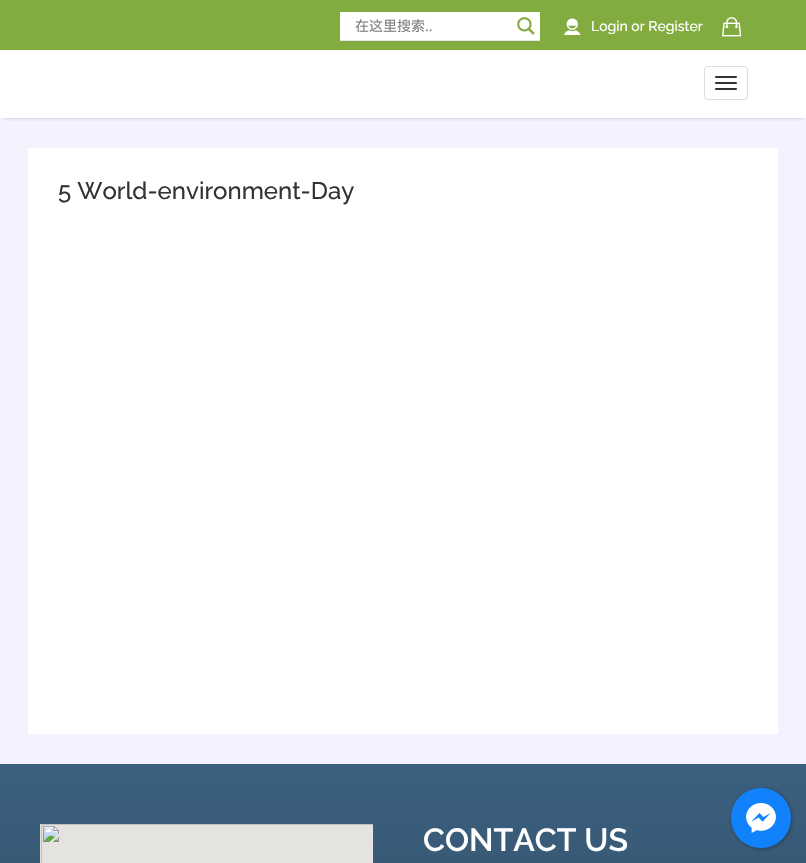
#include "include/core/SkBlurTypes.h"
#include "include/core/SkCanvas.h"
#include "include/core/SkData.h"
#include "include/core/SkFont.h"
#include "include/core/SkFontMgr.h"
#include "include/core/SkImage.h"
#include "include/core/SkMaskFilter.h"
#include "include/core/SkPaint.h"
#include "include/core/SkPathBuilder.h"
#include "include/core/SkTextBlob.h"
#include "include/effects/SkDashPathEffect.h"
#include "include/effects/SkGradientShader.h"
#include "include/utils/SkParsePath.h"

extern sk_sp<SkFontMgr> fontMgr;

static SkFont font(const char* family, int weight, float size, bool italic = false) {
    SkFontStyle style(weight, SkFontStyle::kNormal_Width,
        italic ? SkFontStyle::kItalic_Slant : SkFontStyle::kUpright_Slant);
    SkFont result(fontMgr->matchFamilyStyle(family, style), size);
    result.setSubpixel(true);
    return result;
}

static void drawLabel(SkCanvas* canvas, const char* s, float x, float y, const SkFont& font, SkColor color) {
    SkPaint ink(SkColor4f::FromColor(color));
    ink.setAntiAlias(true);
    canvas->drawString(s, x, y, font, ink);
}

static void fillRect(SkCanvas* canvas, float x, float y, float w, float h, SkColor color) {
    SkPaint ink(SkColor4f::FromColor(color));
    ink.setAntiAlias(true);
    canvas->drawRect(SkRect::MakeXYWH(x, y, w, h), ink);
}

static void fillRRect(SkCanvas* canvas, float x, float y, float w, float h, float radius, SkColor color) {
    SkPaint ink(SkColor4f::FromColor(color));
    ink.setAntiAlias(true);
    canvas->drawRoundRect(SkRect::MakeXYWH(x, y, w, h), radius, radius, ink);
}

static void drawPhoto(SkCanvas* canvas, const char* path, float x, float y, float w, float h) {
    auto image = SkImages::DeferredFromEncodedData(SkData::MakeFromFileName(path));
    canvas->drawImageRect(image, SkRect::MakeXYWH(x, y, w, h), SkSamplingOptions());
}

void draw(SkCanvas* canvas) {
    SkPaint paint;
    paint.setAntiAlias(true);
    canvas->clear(0xFFFFFFFF);
    fillRect(canvas, 0, 0, 806, 50, 0xFF82AC40);
    fillRect(canvas, 340, 40, 200, 1, 0xFFE4E4E4);
    fillRect(canvas, 340, 12, 200, 28, 0xFFFFFFFF);
    SkFont font1 = font("Noto Sans CJK SC", 400, 14);
    drawLabel(canvas, "在这里搜索", 355, 31, font1, 0xFF7D7D7D);
    SkFont font2 = font("Open Sans", 400, 14);
    drawLabel(canvas, "..", 425, 31, font2, 0xFF7D7D7D);
    drawPhoto(canvas, "assets/img1.png", 517, 17, 18, 18);
    drawPhoto(canvas, "assets/img2.png", 564, 18, 17, 17);
    SkFont font3 = font("Raleway", 500, 14);
    drawLabel(canvas, "Login or Register", 591, 31, font3, 0xFFFFFFFF);
    drawPhoto(canvas, "assets/img3.png", 722, 17, 20, 20);
    fillRect(canvas, 0, 118, 806, 646, 0xFFF3F3FF);
    canvas->save();
    canvas->clipRect(SkRect::MakeXYWH(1, 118, 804, 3));
    paint.setColor(0x4D000000);
    paint.setMaskFilter(SkMaskFilter::MakeBlur(kNormal_SkBlurStyle, 2.5f));
    canvas->drawRect(SkRect::MakeXYWH(3, 55, 800, 62), paint);
    paint.setMaskFilter(nullptr);
    canvas->restore();
    paint.setStroke(true);
    paint.setStrokeWidth(1);
    paint.setColor(0xFFDDDDDD);
    canvas->drawRoundRect(SkRect::MakeXYWH(704.5f, 66.5f, 43, 33), 3.5f, 3.5f, paint);
    fillRRect(canvas, 715, 76, 22, 2, 1, 0xFF333333);
    fillRRect(canvas, 715, 82, 22, 2, 1, 0xFF333333);
    fillRRect(canvas, 715, 88, 22, 2, 1, 0xFF333333);
    fillRect(canvas, 28, 148, 750, 586, 0xFFFFFFFF);
    SkFont font4 = font("Raleway", 500, 24);
    drawLabel(canvas, "5 World-environment-Day", 58, 199, font4, 0xFF333333);
    paint.setStroke(false);
    {
        const SkColor colors[] = {0xFF3B6080, 0xFF283A45};
        const float stops[] = {0, 1};
        const SkPoint ends[] = {{403, 764}, {403, 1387}};
        paint.setShader(SkGradientShader::MakeLinear(ends, colors, stops, 2, SkTileMode::kClamp));
        paint.setAlpha(255);
    }
    canvas->drawRect(SkRect::MakeXYWH(0, 764, 806, 99), paint);
    drawPhoto(canvas, "assets/img4.png", 40, 824, 333, 39);
    SkFont font5 = font("Raleway", 600, 32);
    drawLabel(canvas, "CONTACT US", 423, 851, font5, 0xFFFFFFFF);
    paint.setShader(nullptr);
    paint.setColor(0x4D000000);
    paint.setMaskFilter(SkMaskFilter::MakeBlur(kNormal_SkBlurStyle, 2));
    canvas->drawRoundRect(SkRect::MakeXYWH(732, 789, 60, 60), 30, 30, paint);
    paint.setMaskFilter(nullptr);
    paint.setColor(0xFF1182FC);
    canvas->drawCircle(761, 818, 30, paint);
    drawPhoto(canvas, "assets/img5.png", 746, 803, 30, 30);
}
